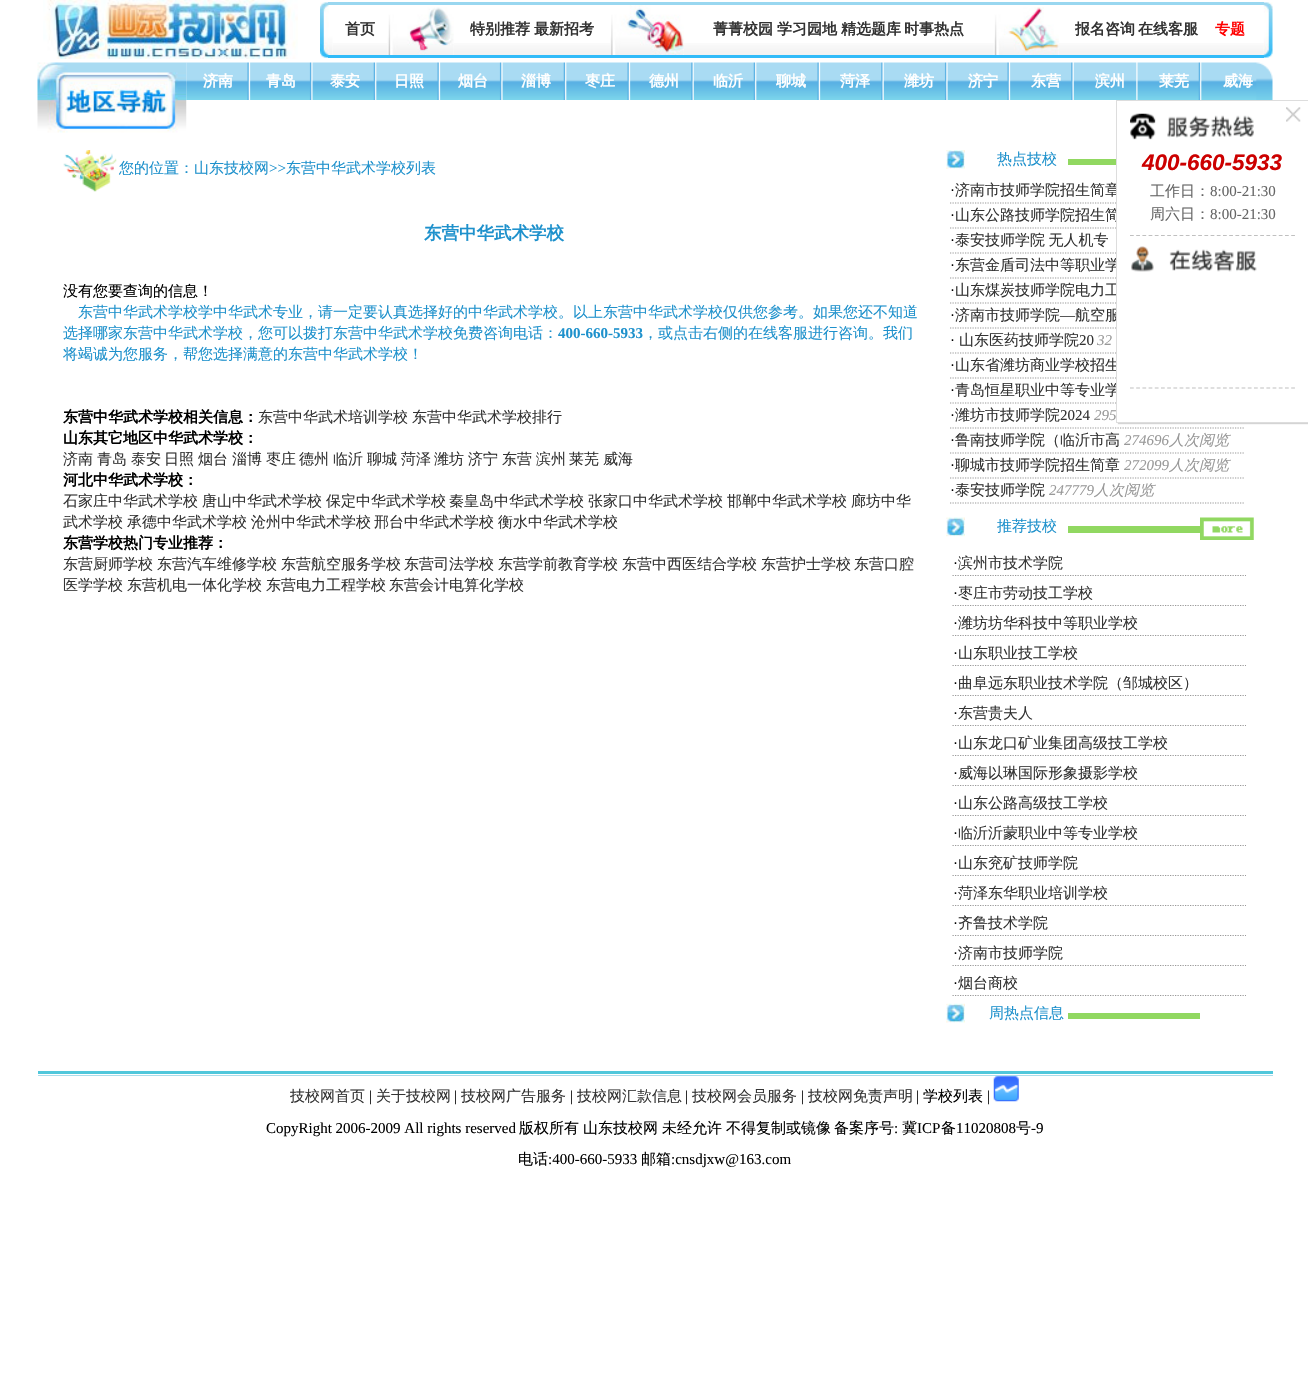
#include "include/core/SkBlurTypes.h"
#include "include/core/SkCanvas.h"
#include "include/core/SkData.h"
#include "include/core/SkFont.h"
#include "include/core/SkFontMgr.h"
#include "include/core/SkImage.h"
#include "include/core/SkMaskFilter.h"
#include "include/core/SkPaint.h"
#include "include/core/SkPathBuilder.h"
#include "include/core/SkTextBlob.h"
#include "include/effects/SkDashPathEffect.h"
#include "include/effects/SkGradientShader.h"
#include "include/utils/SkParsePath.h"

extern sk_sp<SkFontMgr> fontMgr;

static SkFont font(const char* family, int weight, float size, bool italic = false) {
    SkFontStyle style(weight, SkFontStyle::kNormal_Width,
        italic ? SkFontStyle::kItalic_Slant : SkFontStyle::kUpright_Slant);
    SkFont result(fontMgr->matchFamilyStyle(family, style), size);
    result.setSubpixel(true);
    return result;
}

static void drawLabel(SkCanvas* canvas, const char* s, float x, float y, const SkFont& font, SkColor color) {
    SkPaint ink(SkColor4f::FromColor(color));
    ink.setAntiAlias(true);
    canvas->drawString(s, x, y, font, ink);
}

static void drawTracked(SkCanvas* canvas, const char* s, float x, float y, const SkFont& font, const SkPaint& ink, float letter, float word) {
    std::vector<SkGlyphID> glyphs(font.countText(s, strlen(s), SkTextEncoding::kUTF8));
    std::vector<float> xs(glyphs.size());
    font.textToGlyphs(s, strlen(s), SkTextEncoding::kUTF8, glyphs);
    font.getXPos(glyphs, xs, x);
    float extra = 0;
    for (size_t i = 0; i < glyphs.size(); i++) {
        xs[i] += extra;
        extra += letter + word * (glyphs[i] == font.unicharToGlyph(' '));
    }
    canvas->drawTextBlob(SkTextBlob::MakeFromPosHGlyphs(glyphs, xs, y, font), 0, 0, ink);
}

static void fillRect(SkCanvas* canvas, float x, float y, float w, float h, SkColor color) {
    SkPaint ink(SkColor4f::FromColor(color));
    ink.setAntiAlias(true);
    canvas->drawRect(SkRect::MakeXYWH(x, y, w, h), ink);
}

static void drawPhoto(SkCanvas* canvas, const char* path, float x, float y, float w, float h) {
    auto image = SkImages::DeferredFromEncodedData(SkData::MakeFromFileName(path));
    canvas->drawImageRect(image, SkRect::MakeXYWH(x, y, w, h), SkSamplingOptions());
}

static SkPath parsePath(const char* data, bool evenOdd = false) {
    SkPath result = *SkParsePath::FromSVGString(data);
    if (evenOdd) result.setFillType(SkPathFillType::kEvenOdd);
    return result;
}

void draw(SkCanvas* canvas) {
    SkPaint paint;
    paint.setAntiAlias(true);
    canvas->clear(0xFFFFFFFF);
    drawPhoto(canvas, "assets/img1.png", 43, 0, 255, 59);
    drawPhoto(canvas, "assets/img2.png", 320, 2, 9, 56);
    fillRect(canvas, 328, 2, 936, 3, 0xFF99D7F0);
    drawPhoto(canvas, "assets/img11.png", 1215, 43, 49, 12);
    drawPhoto(canvas, "assets/img3.png", 1263, 2, 10, 56);
    drawPhoto(canvas, "assets/img5.png", 332, 43, 56, 12);
    drawPhoto(canvas, "assets/img4.png", 328, 5, 5, 50);
    SkFont font1 = font("WenQuanYi Zen Hei", 700, 15);
    drawLabel(canvas, "首页", 345, 34, font1, 0xFF333333);
    drawPhoto(canvas, "assets/img6.png", 387, 7, 67, 48);
    drawPhoto(canvas, "assets/img7.png", 454, 43, 156, 12);
    drawLabel(canvas, "特别推荐", 470, 34, font1, 0xFF333333);
    drawLabel(canvas, "最新招考", 534, 34, font1, 0xFF333333);
    drawPhoto(canvas, "assets/img8.png", 610, 5, 74, 50);
    drawPhoto(canvas, "assets/img9.png", 684, 43, 310, 12);
    drawLabel(canvas, "菁菁校园", 713, 34, font1, 0xFF333333);
    drawLabel(canvas, "学习园地", 777, 34, font1, 0xFF333333);
    drawLabel(canvas, "精选题库", 841, 34, font1, 0xFF333333);
    drawLabel(canvas, "时事热点", 904, 34, font1, 0xFF333333);
    drawPhoto(canvas, "assets/img10.png", 994, 7, 65, 48);
    drawPhoto(canvas, "assets/img7.png", 1059, 43, 156, 12);
    drawLabel(canvas, "报名咨询", 1075, 34, font1, 0xFF333333);
    drawLabel(canvas, "在线客服", 1138, 34, font1, 0xFF333333);
    drawLabel(canvas, "专题", 1215, 34, font1, 0xFFFF0000);
    fillRect(canvas, 328, 55, 936, 3, 0xFF31BBF9);
    drawPhoto(canvas, "assets/img12.png", 37, 62, 150, 71);
    drawPhoto(canvas, "assets/img13.png", 186, 62, 1087, 38);
    drawLabel(canvas, "济南", 203, 86, font1, 0xFFFFFFFF);
    drawLabel(canvas, "青岛", 266, 86, font1, 0xFFFFFFFF);
    drawLabel(canvas, "泰安", 330, 86, font1, 0xFFFFFFFF);
    drawLabel(canvas, "日照", 394, 86, font1, 0xFFFFFFFF);
    drawLabel(canvas, "烟台", 458, 86, font1, 0xFFFFFFFF);
    drawLabel(canvas, "淄博", 521, 86, font1, 0xFFFFFFFF);
    drawLabel(canvas, "枣庄", 585, 86, font1, 0xFFFFFFFF);
    drawLabel(canvas, "德州", 649, 86, font1, 0xFFFFFFFF);
    drawLabel(canvas, "临沂", 713, 86, font1, 0xFFFFFFFF);
    drawLabel(canvas, "聊城", 776, 86, font1, 0xFFFFFFFF);
    drawLabel(canvas, "菏泽", 840, 86, font1, 0xFFFFFFFF);
    drawLabel(canvas, "潍坊", 904, 86, font1, 0xFFFFFFFF);
    drawLabel(canvas, "济宁", 968, 86, font1, 0xFFFFFFFF);
    drawLabel(canvas, "东营", 1031, 86, font1, 0xFFFFFFFF);
    drawLabel(canvas, "滨州", 1095, 86, font1, 0xFFFFFFFF);
    drawLabel(canvas, "莱芜", 1159, 86, font1, 0xFFFFFFFF);
    drawLabel(canvas, "威海", 1223, 86, font1, 0xFFFFFFFF);
    drawPhoto(canvas, "assets/img14.png", 63, 150, 54, 42);
    SkFont font2 = font("WenQuanYi Zen Hei", 500, 15);
    drawLabel(canvas, "您的位置：山东技校网", 119, 173, font2, 0xFF1E91CC);
    SkFont font3 = font("Liberation Serif", 400, 15);
    drawLabel(canvas, ">>", 269, 173, font3, 0xFF1E91CC);
    drawLabel(canvas, "东营中华武术学校列表", 286, 173, font2, 0xFF1E91CC);
    SkFont font4 = font("WenQuanYi Zen Hei", 700, 17.5f);
    drawLabel(canvas, "东营中华武术学校", 424, 239, font4, 0xFF1E91CC);
    drawLabel(canvas, "没有您要查询的信息！", 63, 296, font2, 0xFF000000);
    drawLabel(canvas, "东营中华武术学校学中华武术专业，请一定要认真选择好的中华武术学校。以上东营中华武术学校仅供您参考。如果您还不知道", 78, 317, font2, 0xFF1E91CC);
    drawLabel(canvas, "选择哪家东营中华武术学校，您可以拨打东营中华武术学校免费咨询电话：", 63, 338, font2, 0xFF1E91CC);
    SkFont font5 = font("Liberation Serif", 700, 15);
    drawLabel(canvas, "400-660-5933", 558, 338, font5, 0xFF1E91CC);
    drawLabel(canvas, "，或点击右侧的在线客服进行咨询。我们", 643, 338, font2, 0xFF1E91CC);
    drawLabel(canvas, "将竭诚为您服务，帮您选择满意的东营中华武术学校！", 63, 359, font2, 0xFF1E91CC);
    drawLabel(canvas, "东营中华武术学校相关信息：", 63, 422, font1, 0xFF000000);
    drawLabel(canvas, "东营中华武术培训学校", 258, 422, font2, 0xFF333333);
    drawLabel(canvas, "东营中华武术学校排行", 412, 422, font2, 0xFF333333);
    drawLabel(canvas, "山东其它地区中华武术学校：", 63, 443, font1, 0xFF000000);
    drawLabel(canvas, "济南", 63, 464, font2, 0xFF333333);
    drawLabel(canvas, "青岛", 97, 464, font2, 0xFF333333);
    drawLabel(canvas, "泰安", 131, 464, font2, 0xFF333333);
    drawLabel(canvas, "日照", 164, 464, font2, 0xFF333333);
    drawLabel(canvas, "烟台", 198, 464, font2, 0xFF333333);
    drawLabel(canvas, "淄博", 232, 464, font2, 0xFF333333);
    drawLabel(canvas, "枣庄", 266, 464, font2, 0xFF333333);
    drawLabel(canvas, "德州", 299, 464, font2, 0xFF333333);
    drawLabel(canvas, "临沂", 333, 464, font2, 0xFF333333);
    drawLabel(canvas, "聊城", 367, 464, font2, 0xFF333333);
    drawLabel(canvas, "菏泽", 401, 464, font2, 0xFF333333);
    drawLabel(canvas, "潍坊", 434, 464, font2, 0xFF333333);
    drawLabel(canvas, "济宁", 468, 464, font2, 0xFF333333);
    drawLabel(canvas, "东营", 502, 464, font2, 0xFF333333);
    drawLabel(canvas, "滨州", 536, 464, font2, 0xFF333333);
    drawLabel(canvas, "莱芜", 569, 464, font2, 0xFF333333);
    drawLabel(canvas, "威海", 603, 464, font2, 0xFF333333);
    drawLabel(canvas, "河北中华武术学校：", 63, 485, font1, 0xFF000000);
    drawLabel(canvas, "石家庄中华武术学校", 63, 506, font2, 0xFF333333);
    drawLabel(canvas, "唐山中华武术学校", 202, 506, font2, 0xFF333333);
    drawLabel(canvas, "保定中华武术学校", 326, 506, font2, 0xFF333333);
    drawLabel(canvas, "秦皇岛中华武术学校", 449, 506, font2, 0xFF333333);
    drawLabel(canvas, "张家口中华武术学校", 588, 506, font2, 0xFF333333);
    drawLabel(canvas, "邯郸中华武术学校", 727, 506, font2, 0xFF333333);
    drawLabel(canvas, "廊坊中华", 851, 506, font2, 0xFF333333);
    drawLabel(canvas, "武术学校", 63, 527, font2, 0xFF333333);
    drawLabel(canvas, "承德中华武术学校", 127, 527, font2, 0xFF333333);
    drawLabel(canvas, "沧州中华武术学校", 251, 527, font2, 0xFF333333);
    drawLabel(canvas, "邢台中华武术学校", 374, 527, font2, 0xFF333333);
    drawLabel(canvas, "衡水中华武术学校", 498, 527, font2, 0xFF333333);
    drawLabel(canvas, "东营学校热门专业推荐：", 63, 548, font1, 0xFF000000);
    drawLabel(canvas, "东营厨师学校", 63, 569, font2, 0xFF333333);
    drawLabel(canvas, "东营汽车维修学校", 157, 569, font2, 0xFF333333);
    drawLabel(canvas, "东营航空服务学校", 281, 569, font2, 0xFF333333);
    drawLabel(canvas, "东营司法学校", 404, 569, font2, 0xFF333333);
    drawLabel(canvas, "东营学前教育学校", 498, 569, font2, 0xFF333333);
    drawLabel(canvas, "东营中西医结合学校", 622, 569, font2, 0xFF333333);
    drawLabel(canvas, "东营护士学校", 761, 569, font2, 0xFF333333);
    drawLabel(canvas, "东营口腔", 854, 569, font2, 0xFF333333);
    drawLabel(canvas, "医学学校", 63, 590, font2, 0xFF333333);
    drawLabel(canvas, "东营机电一体化学校", 127, 590, font2, 0xFF333333);
    drawLabel(canvas, "东营电力工程学校", 266, 590, font2, 0xFF333333);
    drawLabel(canvas, "东营会计电算化学校", 389, 590, font2, 0xFF333333);
    drawPhoto(canvas, "assets/img15.png", 946, 150, 19, 19);
    drawLabel(canvas, "热点技校", 997, 164, font2, 0xFF1E91CC);
    fillRect(canvas, 1068, 159, 48, 6, 0xFF91D861);
    paint.setStroke(true);
    paint.setStrokeWidth(1.2f);
    paint.setColor(0xFF999999);
    paint.setPathEffect(SkDashPathEffect::Make({{1.25f, 1.25f}}, 0));
    canvas->drawPath(parsePath("M950 203H1245"), paint);
    paint.setPathEffect(nullptr);
    drawLabel(canvas, "·", 950, 195, font3, 0xFF000000);
    drawLabel(canvas, "济南市技师学院招生简章", 955, 195, font2, 0xFF333333);
    paint.setPathEffect(SkDashPathEffect::Make({{1.25f, 1.25f}}, 0));
    canvas->drawPath(parsePath("M950 228H1245"), paint);
    paint.setPathEffect(nullptr);
    drawLabel(canvas, "·", 950, 220, font3, 0xFF000000);
    drawLabel(canvas, "山东公路技师学院招生简", 955, 220, font2, 0xFF333333);
    paint.setPathEffect(SkDashPathEffect::Make({{1.25f, 1.25f}}, 0));
    canvas->drawPath(parsePath("M950 253H1245"), paint);
    paint.setPathEffect(nullptr);
    drawLabel(canvas, "·", 950, 245, font3, 0xFF000000);
    paint.setStroke(false);
    paint.setColor(0xFF333333);
    drawTracked(canvas, "泰安技师学院 无人机专", 955, 245, font2, paint, 0, -1);
    paint.setStroke(true);
    paint.setColor(0xFF999999);
    paint.setPathEffect(SkDashPathEffect::Make({{1.25f, 1.25f}}, 0));
    canvas->drawPath(parsePath("M950 278H1245"), paint);
    paint.setPathEffect(nullptr);
    drawLabel(canvas, "·", 950, 270, font3, 0xFF000000);
    drawLabel(canvas, "东营金盾司法中等职业学", 955, 270, font2, 0xFF333333);
    paint.setPathEffect(SkDashPathEffect::Make({{1.25f, 1.25f}}, 0));
    canvas->drawPath(parsePath("M950 303H1245"), paint);
    paint.setPathEffect(nullptr);
    drawLabel(canvas, "·", 950, 295, font3, 0xFF000000);
    drawLabel(canvas, "山东煤炭技师学院电力工", 955, 295, font2, 0xFF333333);
    paint.setPathEffect(SkDashPathEffect::Make({{1.25f, 1.25f}}, 0));
    canvas->drawPath(parsePath("M950 328H1245"), paint);
    paint.setPathEffect(nullptr);
    drawLabel(canvas, "·", 950, 320, font3, 0xFF000000);
    drawLabel(canvas, "济南市技师学院", 955, 320, font2, 0xFF333333);
    drawLabel(canvas, "—", 1060, 320, font3, 0xFF333333);
    drawLabel(canvas, "航空服", 1075, 320, font2, 0xFF333333);
    paint.setPathEffect(SkDashPathEffect::Make({{1.25f, 1.25f}}, 0));
    canvas->drawPath(parsePath("M950 353H1245"), paint);
    paint.setPathEffect(nullptr);
    drawLabel(canvas, "·", 950, 345, font3, 0xFF000000);
    drawLabel(canvas, "山东医药技师学院", 959, 345, font2, 0xFF333333);
    drawLabel(canvas, "20", 1079, 345, font3, 0xFF333333);
    SkFont font6 = font("Liberation Serif", 400, 15, true);
    drawLabel(canvas, "32", 1097, 345, font6, 0xFF999999);
    paint.setPathEffect(SkDashPathEffect::Make({{1.25f, 1.25f}}, 0));
    canvas->drawPath(parsePath("M950 378H1245"), paint);
    paint.setPathEffect(nullptr);
    drawLabel(canvas, "·", 950, 370, font3, 0xFF000000);
    drawLabel(canvas, "山东省潍坊商业学校招生", 955, 370, font2, 0xFF333333);
    paint.setPathEffect(SkDashPathEffect::Make({{1.25f, 1.25f}}, 0));
    canvas->drawPath(parsePath("M950 403H1245"), paint);
    paint.setPathEffect(nullptr);
    drawLabel(canvas, "·", 950, 395, font3, 0xFF000000);
    drawLabel(canvas, "青岛恒星职业中等专业学", 955, 395, font2, 0xFF333333);
    paint.setPathEffect(SkDashPathEffect::Make({{1.25f, 1.25f}}, 0));
    canvas->drawPath(parsePath("M950 428H1245"), paint);
    paint.setPathEffect(nullptr);
    drawLabel(canvas, "·", 950, 420, font3, 0xFF000000);
    drawLabel(canvas, "潍坊市技师学院", 955, 420, font2, 0xFF333333);
    drawLabel(canvas, "2024", 1060, 420, font3, 0xFF333333);
    drawLabel(canvas, "295", 1094, 420, font6, 0xFF999999);
    paint.setPathEffect(SkDashPathEffect::Make({{1.25f, 1.25f}}, 0));
    canvas->drawPath(parsePath("M950 453H1245"), paint);
    paint.setPathEffect(nullptr);
    drawLabel(canvas, "·", 950, 445, font3, 0xFF000000);
    drawLabel(canvas, "鲁南技师学院（临沂市高", 955, 445, font2, 0xFF333333);
    drawLabel(canvas, "274696", 1124, 445, font6, 0xFF999999);
    SkFont font7 = font("WenQuanYi Zen Hei", 500, 15, true);
    drawLabel(canvas, "人次阅览", 1169, 445, font7, 0xFF999999);
    paint.setPathEffect(SkDashPathEffect::Make({{1.25f, 1.25f}}, 0));
    canvas->drawPath(parsePath("M950 478H1245"), paint);
    paint.setPathEffect(nullptr);
    drawLabel(canvas, "·", 950, 470, font3, 0xFF000000);
    drawLabel(canvas, "聊城市技师学院招生简章", 955, 470, font2, 0xFF333333);
    drawLabel(canvas, "272099", 1124, 470, font6, 0xFF999999);
    drawLabel(canvas, "人次阅览", 1169, 470, font7, 0xFF999999);
    paint.setPathEffect(SkDashPathEffect::Make({{1.25f, 1.25f}}, 0));
    canvas->drawPath(parsePath("M950 503H1245"), paint);
    paint.setPathEffect(nullptr);
    drawLabel(canvas, "·", 950, 495, font3, 0xFF000000);
    drawLabel(canvas, "泰安技师学院", 955, 495, font2, 0xFF333333);
    drawLabel(canvas, "247779", 1049, 495, font6, 0xFF999999);
    drawLabel(canvas, "人次阅览", 1094, 495, font7, 0xFF999999);
    drawPhoto(canvas, "assets/img16.png", 946, 517, 19, 20);
    drawLabel(canvas, "推荐技校", 997, 531, font2, 0xFF1E91CC);
    fillRect(canvas, 1068, 526, 132, 7, 0xFF91D861);
    drawPhoto(canvas, "assets/img17.png", 1200, 517, 54, 23);
    paint.setPathEffect(SkDashPathEffect::Make({{1.25f, 1.25f}}, 0));
    canvas->drawPath(parsePath("M952.5 575.5H1246"), paint);
    paint.setPathEffect(nullptr);
    drawLabel(canvas, "·", 953, 568, font3, 0xFF000000);
    drawLabel(canvas, "滨州市技术学院", 958, 568, font2, 0xFF333333);
    paint.setPathEffect(SkDashPathEffect::Make({{1.25f, 1.25f}}, 0));
    canvas->drawPath(parsePath("M952.5 605.5H1246"), paint);
    paint.setPathEffect(nullptr);
    drawLabel(canvas, "·", 953, 598, font3, 0xFF000000);
    drawLabel(canvas, "枣庄市劳动技工学校", 958, 598, font2, 0xFF333333);
    paint.setPathEffect(SkDashPathEffect::Make({{1.25f, 1.25f}}, 0));
    canvas->drawPath(parsePath("M952.5 635.5H1246"), paint);
    paint.setPathEffect(nullptr);
    drawLabel(canvas, "·", 953, 628, font3, 0xFF000000);
    drawLabel(canvas, "潍坊坊华科技中等职业学校", 958, 628, font2, 0xFF333333);
    paint.setPathEffect(SkDashPathEffect::Make({{1.25f, 1.25f}}, 0));
    canvas->drawPath(parsePath("M952.5 665.5H1246"), paint);
    paint.setPathEffect(nullptr);
    drawLabel(canvas, "·", 953, 658, font3, 0xFF000000);
    drawLabel(canvas, "山东职业技工学校", 958, 658, font2, 0xFF333333);
    paint.setPathEffect(SkDashPathEffect::Make({{1.25f, 1.25f}}, 0));
    canvas->drawPath(parsePath("M952.5 695.5H1246"), paint);
    paint.setPathEffect(nullptr);
    drawLabel(canvas, "·", 953, 688, font3, 0xFF000000);
    drawLabel(canvas, "曲阜远东职业技术学院（邹城校区）", 958, 688, font2, 0xFF333333);
    paint.setPathEffect(SkDashPathEffect::Make({{1.25f, 1.25f}}, 0));
    canvas->drawPath(parsePath("M952.5 725.5H1246"), paint);
    paint.setPathEffect(nullptr);
    drawLabel(canvas, "·", 953, 718, font3, 0xFF000000);
    drawLabel(canvas, "东营贵夫人", 958, 718, font2, 0xFF333333);
    paint.setPathEffect(SkDashPathEffect::Make({{1.25f, 1.25f}}, 0));
    canvas->drawPath(parsePath("M952.5 755.5H1246"), paint);
    paint.setPathEffect(nullptr);
    drawLabel(canvas, "·", 953, 748, font3, 0xFF000000);
    drawLabel(canvas, "山东龙口矿业集团高级技工学校", 958, 748, font2, 0xFF333333);
    paint.setPathEffect(SkDashPathEffect::Make({{1.25f, 1.25f}}, 0));
    canvas->drawPath(parsePath("M952.5 785.5H1246"), paint);
    paint.setPathEffect(nullptr);
    drawLabel(canvas, "·", 953, 778, font3, 0xFF000000);
    drawLabel(canvas, "威海以琳国际形象摄影学校", 958, 778, font2, 0xFF333333);
    paint.setPathEffect(SkDashPathEffect::Make({{1.25f, 1.25f}}, 0));
    canvas->drawPath(parsePath("M952.5 815.5H1246"), paint);
    paint.setPathEffect(nullptr);
    drawLabel(canvas, "·", 953, 808, font3, 0xFF000000);
    drawLabel(canvas, "山东公路高级技工学校", 958, 808, font2, 0xFF333333);
    paint.setPathEffect(SkDashPathEffect::Make({{1.25f, 1.25f}}, 0));
    canvas->drawPath(parsePath("M952.5 845.5H1246"), paint);
    paint.setPathEffect(nullptr);
    drawLabel(canvas, "·", 953, 838, font3, 0xFF000000);
    drawLabel(canvas, "临沂沂蒙职业中等专业学校", 958, 838, font2, 0xFF333333);
    paint.setPathEffect(SkDashPathEffect::Make({{1.25f, 1.25f}}, 0));
    canvas->drawPath(parsePath("M952.5 875.5H1246"), paint);
    paint.setPathEffect(nullptr);
    drawLabel(canvas, "·", 953, 868, font3, 0xFF000000);
    drawLabel(canvas, "山东兖矿技师学院", 958, 868, font2, 0xFF333333);
    paint.setPathEffect(SkDashPathEffect::Make({{1.25f, 1.25f}}, 0));
    canvas->drawPath(parsePath("M952.5 905.5H1246"), paint);
    paint.setPathEffect(nullptr);
    drawLabel(canvas, "·", 953, 898, font3, 0xFF000000);
    drawLabel(canvas, "菏泽东华职业培训学校", 958, 898, font2, 0xFF333333);
    paint.setPathEffect(SkDashPathEffect::Make({{1.25f, 1.25f}}, 0));
    canvas->drawPath(parsePath("M952.5 935.5H1246"), paint);
    paint.setPathEffect(nullptr);
    drawLabel(canvas, "·", 953, 928, font3, 0xFF000000);
    drawLabel(canvas, "齐鲁技术学院", 958, 928, font2, 0xFF333333);
    paint.setPathEffect(SkDashPathEffect::Make({{1.25f, 1.25f}}, 0));
    canvas->drawPath(parsePath("M952.5 965.5H1246"), paint);
    paint.setPathEffect(nullptr);
    drawLabel(canvas, "·", 953, 958, font3, 0xFF000000);
    drawLabel(canvas, "济南市技师学院", 958, 958, font2, 0xFF333333);
    paint.setPathEffect(SkDashPathEffect::Make({{1.25f, 1.25f}}, 0));
    canvas->drawPath(parsePath("M952.5 995.5H1246"), paint);
    paint.setPathEffect(nullptr);
    drawLabel(canvas, "·", 953, 988, font3, 0xFF000000);
    drawLabel(canvas, "烟台商校", 958, 988, font2, 0xFF333333);
    drawPhoto(canvas, "assets/img18.png", 946, 1003, 19, 20);
    drawLabel(canvas, "周热点信息", 989, 1018, font2, 0xFF1E91CC);
    fillRect(canvas, 1068, 1013, 132, 6, 0xFF91D861);
    paint.setStroke(false);
    paint.setColor(0xFFD4D4D4);
    paint.setMaskFilter(SkMaskFilter::MakeBlur(kNormal_SkBlurStyle, 0.5f));
    canvas->drawRect(SkRect::MakeXYWH(1118, 101, 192, 323), paint);
    paint.setMaskFilter(nullptr);
    paint.setColor(0xFFFFFFFF);
    canvas->drawRect(SkRect::MakeXYWH(1116.5f, 100.5f, 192, 322), paint);
    paint.setStroke(true);
    paint.setStrokeWidth(1);
    paint.setColor(0xFFDDDDDD);
    canvas->drawRect(SkRect::MakeXYWH(1116.5f, 100.5f, 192, 322), paint);
    drawPhoto(canvas, "assets/img19.png", 1130, 113, 124, 27);
    drawPhoto(canvas, "assets/img20.png", 1286, 107, 15, 15);
    SkFont font8 = font("Liberation Sans", 700, 22.5f, true);
    drawLabel(canvas, "400-660-5933", 1142, 170, font8, 0xFFCC0000);
    drawLabel(canvas, "工作日：", 1150, 196, font2, 0xFF666666);
    drawLabel(canvas, "8:00-21:30", 1210, 196, font3, 0xFF666666);
    drawLabel(canvas, "周六日：", 1150, 219, font2, 0xFF666666);
    drawLabel(canvas, "8:00-21:30", 1210, 219, font3, 0xFF666666);
    paint.setStrokeWidth(1.2f);
    paint.setColor(0xFFC0C0C0);
    paint.setPathEffect(SkDashPathEffect::Make({{3.75f, 2.45f}}, 0));
    canvas->drawPath(parsePath("M1130 235.5H1295"), paint);
    paint.setPathEffect(nullptr);
    drawPhoto(canvas, "assets/img21.png", 1131, 246, 126, 26);
    paint.setPathEffect(SkDashPathEffect::Make({{3.75f, 2.45f}}, 0));
    canvas->drawPath(parsePath("M1130 388H1295"), paint);
    paint.setPathEffect(nullptr);
    fillRect(canvas, 38, 1071, 1235, 3, 0xFF50C7DB);
    fillRect(canvas, 38, 1075, 1235, 1, 0xFFAADCEA);
    drawLabel(canvas, "技校网首页", 290, 1101, font2, 0xFF333333);
    drawLabel(canvas, "|", 369, 1101, font3, 0xFF000000);
    drawLabel(canvas, "关于技校网", 376, 1101, font2, 0xFF333333);
    drawLabel(canvas, "|", 454, 1101, font3, 0xFF000000);
    drawLabel(canvas, "技校网广告服务", 461, 1101, font2, 0xFF333333);
    drawLabel(canvas, "|", 570, 1101, font3, 0xFF000000);
    drawLabel(canvas, "技校网汇款信息", 577, 1101, font2, 0xFF333333);
    drawLabel(canvas, "|", 685, 1101, font3, 0xFF000000);
    drawLabel(canvas, "技校网会员服务", 692, 1101, font2, 0xFF333333);
    drawLabel(canvas, "|", 801, 1101, font3, 0xFF000000);
    drawLabel(canvas, "技校网免责声明", 808, 1101, font2, 0xFF333333);
    drawLabel(canvas, "|", 916, 1101, font3, 0xFF000000);
    drawLabel(canvas, "学校列表", 923, 1101, font2, 0xFF000000);
    drawLabel(canvas, "|", 987, 1101, font3, 0xFF000000);
    drawPhoto(canvas, "assets/img22.png", 993, 1076, 26, 26);
    drawLabel(canvas, "CopyRight 2006-2009 All rights reserved", 266, 1133, font3, 0xFF000000);
    drawLabel(canvas, "版权所有", 519, 1133, font2, 0xFF000000);
    drawLabel(canvas, "山东技校网", 583, 1133, font2, 0xFF000000);
    drawLabel(canvas, "未经允许", 662, 1133, font2, 0xFF000000);
    drawLabel(canvas, "不得复制或镜像", 726, 1133, font2, 0xFF000000);
    drawLabel(canvas, "备案序号", 834, 1133, font2, 0xFF000000);
    drawLabel(canvas, ":", 894, 1133, font3, 0xFF000000);
    drawLabel(canvas, "冀", 902, 1133, font2, 0xFF000000);
    drawLabel(canvas, "ICP", 917, 1133, font3, 0xFF000000);
    drawLabel(canvas, "备", 941, 1133, font2, 0xFF000000);
    drawLabel(canvas, "11020808", 956, 1133, font3, 0xFF000000);
    drawLabel(canvas, "号", 1016, 1133, font2, 0xFF000000);
    drawLabel(canvas, "-9", 1031, 1133, font3, 0xFF000000);
    drawLabel(canvas, "电话", 518, 1164, font2, 0xFF000000);
    drawLabel(canvas, ":400-660-5933", 548, 1164, font3, 0xFF000000);
    drawLabel(canvas, "邮箱", 641, 1164, font2, 0xFF000000);
    drawLabel(canvas, ":cnsdjxw@163.com", 671, 1164, font3, 0xFF000000);
}
